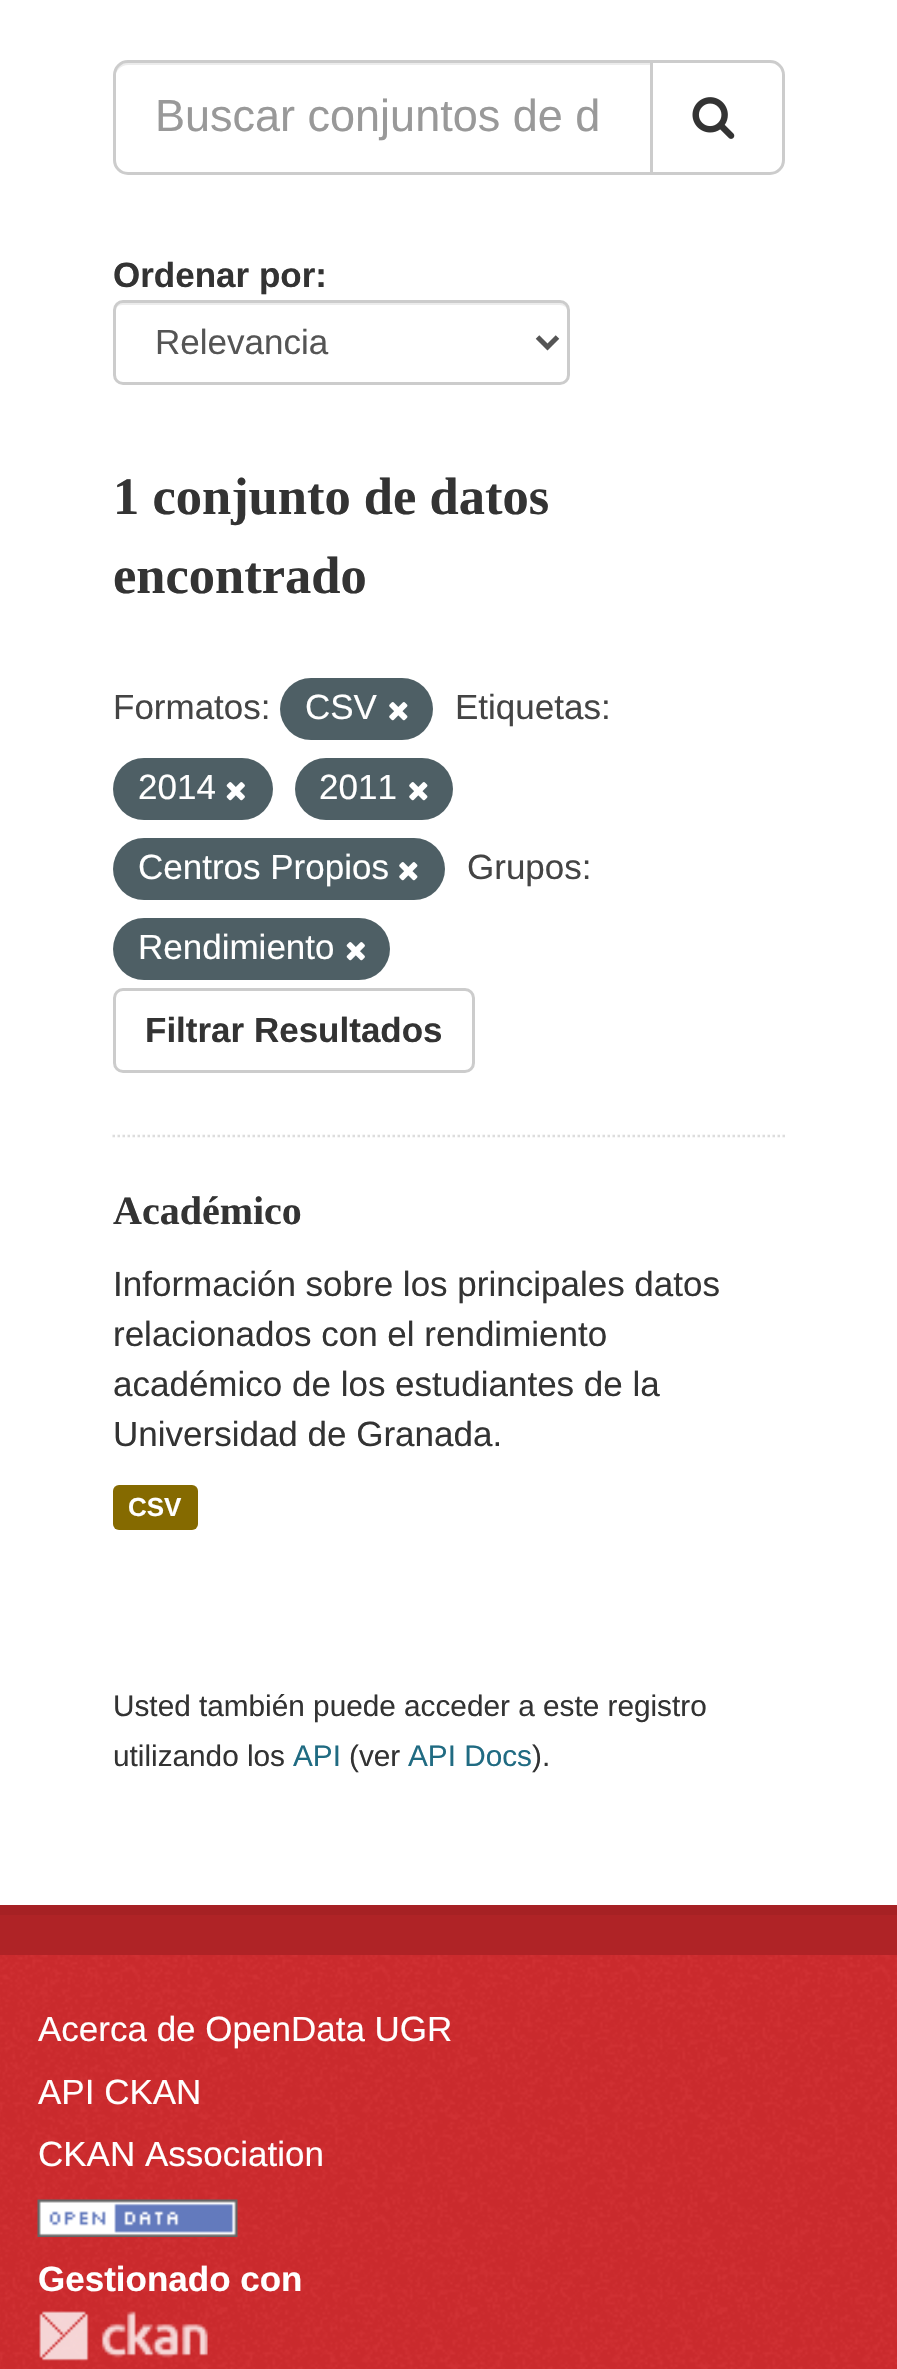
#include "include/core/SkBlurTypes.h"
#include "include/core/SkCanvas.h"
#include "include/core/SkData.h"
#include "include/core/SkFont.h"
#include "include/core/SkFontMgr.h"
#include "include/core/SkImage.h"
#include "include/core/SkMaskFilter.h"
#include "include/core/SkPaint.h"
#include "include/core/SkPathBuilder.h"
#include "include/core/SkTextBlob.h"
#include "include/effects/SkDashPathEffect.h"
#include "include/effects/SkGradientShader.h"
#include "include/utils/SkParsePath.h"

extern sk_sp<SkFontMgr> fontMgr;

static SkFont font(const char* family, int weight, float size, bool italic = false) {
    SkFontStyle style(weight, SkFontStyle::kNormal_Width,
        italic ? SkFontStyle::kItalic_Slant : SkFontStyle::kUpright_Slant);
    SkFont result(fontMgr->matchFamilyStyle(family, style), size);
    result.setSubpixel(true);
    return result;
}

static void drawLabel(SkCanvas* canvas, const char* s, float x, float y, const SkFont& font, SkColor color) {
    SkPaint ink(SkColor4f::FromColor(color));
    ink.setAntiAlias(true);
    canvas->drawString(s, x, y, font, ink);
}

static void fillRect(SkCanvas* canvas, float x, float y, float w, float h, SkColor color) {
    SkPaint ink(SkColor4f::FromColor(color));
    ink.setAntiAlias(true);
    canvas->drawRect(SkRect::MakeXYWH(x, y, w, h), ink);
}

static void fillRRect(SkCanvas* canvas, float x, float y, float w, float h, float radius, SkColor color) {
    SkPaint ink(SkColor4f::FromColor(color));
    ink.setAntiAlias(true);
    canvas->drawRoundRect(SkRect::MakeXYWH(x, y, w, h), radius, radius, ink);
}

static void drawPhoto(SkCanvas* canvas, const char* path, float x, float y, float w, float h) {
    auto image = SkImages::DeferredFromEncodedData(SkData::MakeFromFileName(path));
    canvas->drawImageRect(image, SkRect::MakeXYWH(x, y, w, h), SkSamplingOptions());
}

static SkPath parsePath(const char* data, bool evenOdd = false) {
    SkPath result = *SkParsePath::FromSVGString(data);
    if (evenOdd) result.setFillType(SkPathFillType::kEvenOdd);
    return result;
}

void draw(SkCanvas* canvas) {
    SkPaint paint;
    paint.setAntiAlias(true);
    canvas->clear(0xFFD12B2E);
    fillRect(canvas, 0, 1915, 897, 40, 0xFFAF2326);
    paint.setStroke(true);
    paint.setStrokeWidth(10);
    paint.setColor(0xFFA62124);
    canvas->drawRect(SkRect::MakeXYWH(-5, -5, 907, 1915), paint);
    fillRect(canvas, 0, 0, 897, 1905, 0xFFFFFFFF);
    paint.setStrokeWidth(2.5f);
    paint.setColor(0xFFDDDDDD);
    paint.setPathEffect(SkDashPathEffect::Make({{2.5f, 2.5f}}, 0));
    canvas->drawPath(parsePath("M112.5 1136H785"), paint);
    paint.setPathEffect(nullptr);
    paint.setStroke(false);
    paint.setColor(0xFFECECEC);
    canvas->drawPath(parsePath("M128 65H650V63H128C119 63 115 70 115 78C115 71 121 65 128 65Z"), paint);
    paint.setStroke(true);
    paint.setStrokeWidth(3);
    paint.setColor(0xFFCCCCCC);
    canvas->drawPath(parsePath("M128 61.5H651.5V173.5H128C120.5 173.5 114.5 167.5 114.5 160V75C114.5 67.5 120.5 61.5 128 61.5Z"), paint);
    SkFont font1 = font("Liberation Sans", 400, 45);
    drawLabel(canvas, "Buscar conjuntos de d", 155, 131, font1, 0xFF999999);
    paint.setStroke(false);
    paint.setColor(0xFFFFFFFF);
    canvas->drawPath(parsePath("M651.5 61.5H770C777.5 61.5 783.5 67.5 783.5 75V160C783.5 167.5 777.5 173.5 770 173.5H651.5Z"), paint);
    paint.setStroke(true);
    paint.setColor(0xFFCCCCCC);
    canvas->drawPath(parsePath("M651.5 61.5H770C777.5 61.5 783.5 67.5 783.5 75V160C783.5 167.5 777.5 173.5 770 173.5H651.5Z"), paint);
    drawPhoto(canvas, "assets/img1.png", 692, 97, 43, 42);
    SkFont font2 = font("Liberation Sans", 700, 35);
    drawLabel(canvas, "Ordenar por:", 113, 287, font2, 0xFF333333);
    paint.setStroke(false);
    paint.setColor(0xFFECECEC);
    canvas->drawPath(parsePath("M122 305H560C564 305 568 308 568 312C568 307 565 303 560 303H123C118 303 115 307 115 312C115 308 118 305 122 305Z"), paint);
    paint.setStroke(true);
    paint.setColor(0xFFCCCCCC);
    canvas->drawRoundRect(SkRect::MakeXYWH(114.5f, 301.5f, 454, 82), 8.5f, 8.5f, paint);
    paint.setStrokeWidth(5);
    paint.setColor(0xFF555555);
    canvas->drawPath(parsePath("M537.5 337L547.5 347L557.5 337"), paint);
    SkFont font3 = font("Liberation Sans", 400, 35);
    drawLabel(canvas, "Relevancia", 155, 354, font3, 0xFF555555);
    SkFont font4 = font("Liberation Serif", 700, 52.5f);
    drawLabel(canvas, "1 conjunto de datos", 113, 514, font4, 0xFF333333);
    drawLabel(canvas, "encontrado", 113, 593, font4, 0xFF333333);
    drawLabel(canvas, "Formatos:", 113, 719, font3, 0xFF444444);
    fillRRect(canvas, 280, 678, 153, 62, 31, 0xFF4E5F65);
    drawLabel(canvas, "CSV", 305, 719, font3, 0xFFFFFFFF);
    drawPhoto(canvas, "assets/img2.png", 389, 702, 19, 19);
    drawLabel(canvas, "Etiquetas:", 455, 719, font3, 0xFF444444);
    fillRRect(canvas, 113, 758, 160, 62, 31, 0xFF4E5F65);
    drawLabel(canvas, "2014", 138, 799, font3, 0xFFFFFFFF);
    drawPhoto(canvas, "assets/img3.png", 226, 782, 19, 19);
    fillRRect(canvas, 295, 758, 158, 62, 31, 0xFF4E5F65);
    drawLabel(canvas, "2011", 319, 799, font3, 0xFFFFFFFF);
    drawPhoto(canvas, "assets/img2.png", 409, 782, 19, 19);
    fillRRect(canvas, 113, 838, 332, 62, 31, 0xFF4E5F65);
    drawLabel(canvas, "Centros Propios", 138, 879, font3, 0xFFFFFFFF);
    drawPhoto(canvas, "assets/img2.png", 399, 862, 19, 19);
    drawLabel(canvas, "Grupos:", 467, 879, font3, 0xFF444444);
    fillRRect(canvas, 113, 918, 277, 62, 31, 0xFF4E5F65);
    drawLabel(canvas, "Rendimiento", 138, 959, font3, 0xFFFFFFFF);
    drawPhoto(canvas, "assets/img3.png", 346, 942, 19, 19);
    paint.setStrokeWidth(3);
    paint.setColor(0xFFCCCCCC);
    canvas->drawRoundRect(SkRect::MakeXYWH(114.5f, 989.5f, 359, 82), 8.5f, 8.5f, paint);
    drawLabel(canvas, "Filtrar Resultados", 145, 1042, font2, 0xFF333333);
    SkFont font5 = font("Liberation Serif", 700, 40);
    drawLabel(canvas, "Académico", 113, 1224, font5, 0xFF333333);
    drawLabel(canvas, "Información sobre los principales datos", 113, 1296, font3, 0xFF333333);
    drawLabel(canvas, "relacionados con el rendimiento", 113, 1346, font3, 0xFF333333);
    drawLabel(canvas, "académico de los estudiantes de la", 113, 1396, font3, 0xFF333333);
    drawLabel(canvas, "Universidad de Granada.", 113, 1446, font3, 0xFF333333);
    fillRRect(canvas, 113, 1485, 85, 45, 6, 0xFF856A00);
    SkFont font6 = font("Liberation Sans", 700, 26);
    drawLabel(canvas, "CSV", 128, 1516, font6, 0xFFFFFFFF);
    SkFont font7 = font("Liberation Sans", 400, 29.75f);
    drawLabel(canvas, "Usted también puede acceder a este registro", 113, 1716, font7, 0xFF333333);
    drawLabel(canvas, "utilizando los", 113, 1766, font7, 0xFF333333);
    drawLabel(canvas, "API", 293, 1766, font7, 0xFF206B82);
    drawLabel(canvas, "(ver", 349, 1766, font7, 0xFF333333);
    drawLabel(canvas, "API Docs", 408, 1766, font7, 0xFF206B82);
    drawLabel(canvas, ").", 532, 1766, font7, 0xFF333333);
    drawPhoto(canvas, "assets/img4.png", 0, 1955, 897, 414);
    drawLabel(canvas, "Acerca de OpenData UGR", 38, 2041, font3, 0xFFFFFFFF);
    drawLabel(canvas, "API CKAN", 38, 2104, font3, 0xFFFFFFFF);
    drawLabel(canvas, "CKAN Association", 38, 2166, font3, 0xFFFFFFFF);
    drawPhoto(canvas, "assets/img5.png", 37, 2199, 201, 38);
    drawLabel(canvas, "Gestionado con", 38, 2291, font2, 0xFFFFFFFF);
    drawPhoto(canvas, "assets/img6.png", 39, 2311, 169, 50);
}
